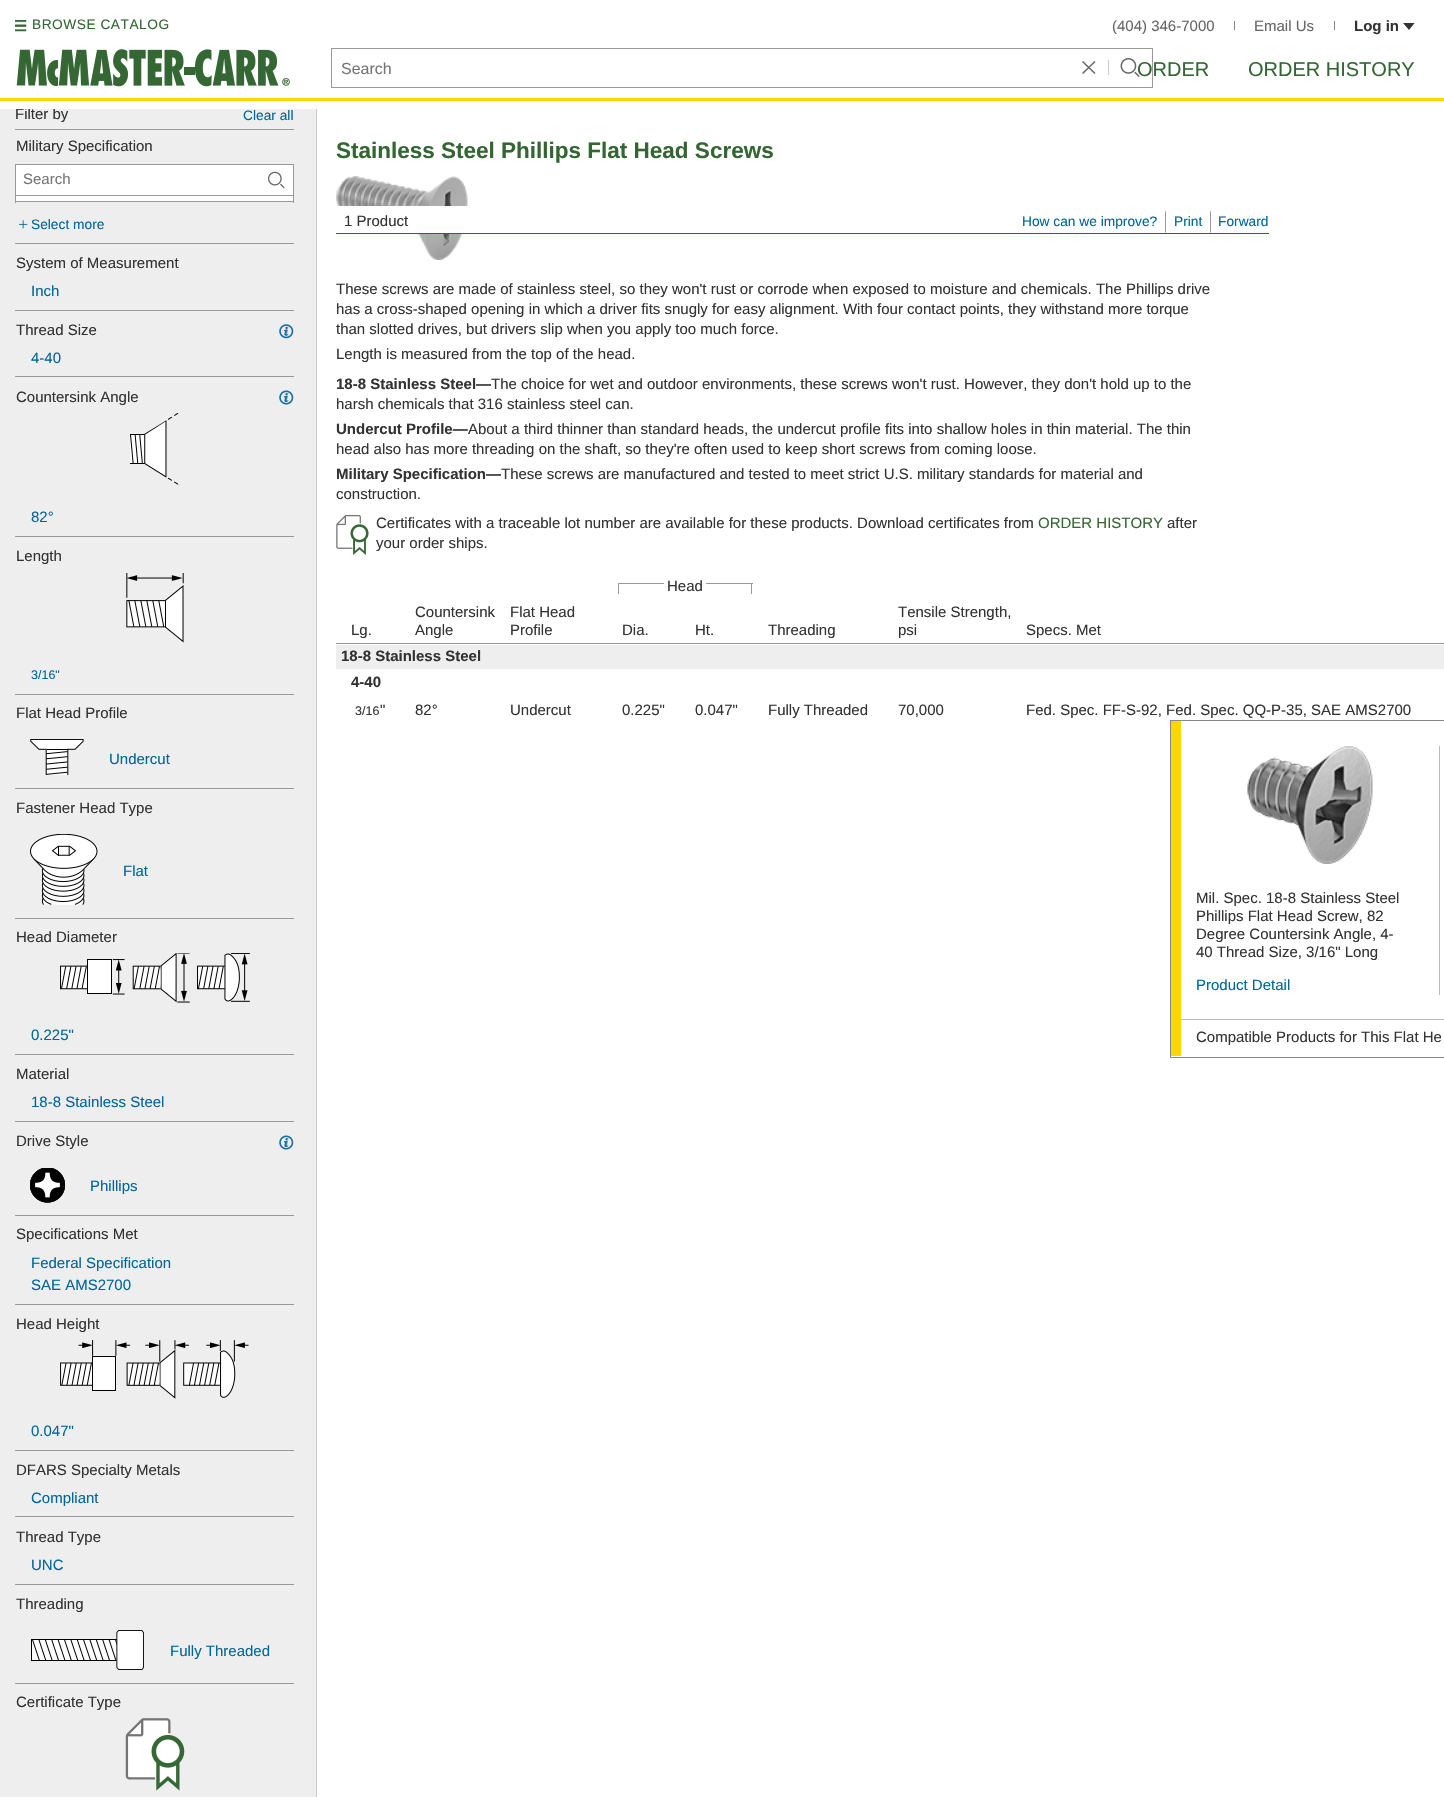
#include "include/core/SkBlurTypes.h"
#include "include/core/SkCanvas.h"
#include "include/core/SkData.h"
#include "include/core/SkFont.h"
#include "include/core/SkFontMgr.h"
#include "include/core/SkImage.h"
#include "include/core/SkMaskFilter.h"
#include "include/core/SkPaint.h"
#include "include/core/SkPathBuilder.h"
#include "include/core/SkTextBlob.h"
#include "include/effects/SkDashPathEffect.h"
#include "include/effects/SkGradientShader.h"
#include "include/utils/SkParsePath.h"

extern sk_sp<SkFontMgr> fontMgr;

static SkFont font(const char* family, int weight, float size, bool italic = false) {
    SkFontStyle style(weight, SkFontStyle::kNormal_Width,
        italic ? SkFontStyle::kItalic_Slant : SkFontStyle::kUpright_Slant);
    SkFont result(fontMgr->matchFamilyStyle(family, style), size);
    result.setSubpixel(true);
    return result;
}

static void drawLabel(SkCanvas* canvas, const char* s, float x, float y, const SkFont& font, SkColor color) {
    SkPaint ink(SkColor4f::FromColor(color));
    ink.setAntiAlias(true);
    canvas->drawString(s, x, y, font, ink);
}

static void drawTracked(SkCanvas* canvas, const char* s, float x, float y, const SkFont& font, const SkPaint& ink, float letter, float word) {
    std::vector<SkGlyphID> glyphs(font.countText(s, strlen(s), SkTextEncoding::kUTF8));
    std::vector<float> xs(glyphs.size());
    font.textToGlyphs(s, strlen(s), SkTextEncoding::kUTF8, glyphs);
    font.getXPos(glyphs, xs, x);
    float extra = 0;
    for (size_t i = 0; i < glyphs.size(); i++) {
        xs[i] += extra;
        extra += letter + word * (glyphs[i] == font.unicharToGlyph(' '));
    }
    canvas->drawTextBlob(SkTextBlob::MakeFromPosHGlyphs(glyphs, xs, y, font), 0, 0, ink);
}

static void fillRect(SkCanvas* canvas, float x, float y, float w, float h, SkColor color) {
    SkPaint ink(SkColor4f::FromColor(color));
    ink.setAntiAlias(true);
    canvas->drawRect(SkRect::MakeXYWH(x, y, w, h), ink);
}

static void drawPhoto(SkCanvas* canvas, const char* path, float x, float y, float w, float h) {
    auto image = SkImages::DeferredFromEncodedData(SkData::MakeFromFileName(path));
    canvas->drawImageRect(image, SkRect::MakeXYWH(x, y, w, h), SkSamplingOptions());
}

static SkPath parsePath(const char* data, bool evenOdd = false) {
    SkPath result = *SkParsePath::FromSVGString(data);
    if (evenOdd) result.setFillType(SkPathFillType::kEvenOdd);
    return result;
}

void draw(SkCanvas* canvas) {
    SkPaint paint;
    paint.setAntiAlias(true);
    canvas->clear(0xFFFFFFFF);
    fillRect(canvas, 0, 109, 316, 1688, 0xFFEEEEEE);
    SkFont font1 = font("Liberation Sans", 400, 15);
    drawLabel(canvas, "Filter by", 15, 119, font1, 0xFF333333);
    fillRect(canvas, 16, 108, 39, 1, 0xFFFFFFFF);
    fillRect(canvas, 0, 98, 1444, 3, 0xFFFED700);
    drawPhoto(canvas, "assets/img1.png", 15, 20, 12, 12);
    SkFont font2 = font("Liberation Sans", 400, 13.75f);
    paint.setColor(0xFF336633);
    drawTracked(canvas, "BROWSE CATALOG", 32, 29, font2, paint, 0.5f, 0);
    drawLabel(canvas, "(404) 346-7000", 1112, 31, font1, 0xFF666666);
    fillRect(canvas, 1234, 21, 1, 9, 0xFF878787);
    drawLabel(canvas, "Email Us", 1254, 31, font1, 0xFF666666);
    fillRect(canvas, 1334, 21, 1, 9, 0xFF878787);
    SkFont font3 = font("Liberation Sans", 700, 15);
    drawLabel(canvas, "Log in", 1354, 31, font3, 0xFF333333);
    canvas->save();
    canvas->clipRect(SkRect::MakeXYWH(1403, 23, 12, 7));
    paint.setColor(0xFF333333);
    canvas->drawPath(parsePath("M1402.5 22.5L1409 30L1415 22.5Z"), paint);
    canvas->restore();
    drawPhoto(canvas, "assets/img2.png", 16, 49, 274, 38);
    paint.setStroke(true);
    paint.setStrokeWidth(1);
    paint.setColor(0xFF999999);
    canvas->drawRect(SkRect::MakeXYWH(331.5f, 48.5f, 821, 39), paint);
    SkFont font4 = font("Liberation Sans", 400, 16);
    drawLabel(canvas, "Search", 341, 74, font4, 0xFF757575);
    paint.setStrokeWidth(1.5f);
    paint.setColor(0xFF666666);
    canvas->drawPath(parsePath("M1082.5 61.5L1095 73.5M1095 61.5L1082.5 73.5"), paint);
    fillRect(canvas, 1108, 60, 1, 15, 0xFFCBCBCB);
    drawPhoto(canvas, "assets/img3.png", 1120, 58, 20, 19);
    SkFont font5 = font("Liberation Sans", 400, 20);
    drawLabel(canvas, "ORDER", 1137, 76, font5, 0xFF336633);
    drawLabel(canvas, "ORDER HISTORY", 1248, 76, font5, 0xFF336633);
    fillRect(canvas, 316, 109, 1, 1688, 0xFFCCCCCC);
    fillRect(canvas, 15, 129, 279, 1, 0xFF999999);
    drawLabel(canvas, "Clear all", 243, 120, font2, 0xFF006699);
    drawLabel(canvas, "Military Specification", 16, 151, font1, 0xFF333333);
    paint.setStroke(false);
    paint.setColor(0xFFFFFFFF);
    canvas->drawRect(SkRect::MakeXYWH(15.5f, 164.5f, 278, 31), paint);
    paint.setStroke(true);
    paint.setStrokeWidth(1);
    paint.setColor(0xFF999999);
    canvas->drawRect(SkRect::MakeXYWH(15.5f, 164.5f, 278, 31), paint);
    drawLabel(canvas, "Search", 23, 184, font1, 0xFF757575);
    drawPhoto(canvas, "assets/img4.png", 268, 171, 17, 18);
    fillRect(canvas, 16, 196, 277, 5, 0xFFFFFFFF);
    fillRect(canvas, 293, 196, 1, 7, 0xFF999999);
    fillRect(canvas, 15, 201, 279, 1, 0xFF999999);
    fillRect(canvas, 15, 196, 1, 7, 0xFF999999);
    drawPhoto(canvas, "assets/img5.png", 19, 220, 9, 9);
    drawLabel(canvas, "Select more", 31, 229, font2, 0xFF006699);
    fillRect(canvas, 15, 243, 279, 1, 0xFF999999);
    drawLabel(canvas, "System of Measurement", 16, 268, font1, 0xFF333333);
    drawLabel(canvas, "Inch", 31, 296, font1, 0xFF006699);
    fillRect(canvas, 15, 310, 279, 1, 0xFF999999);
    drawLabel(canvas, "Thread Size", 16, 335, font1, 0xFF333333);
    drawPhoto(canvas, "assets/img6.png", 279, 324, 15, 15);
    drawLabel(canvas, "4-40", 31, 363, font1, 0xFF006699);
    fillRect(canvas, 15, 376, 279, 1, 0xFF999999);
    drawLabel(canvas, "Countersink Angle", 16, 402, font1, 0xFF333333);
    drawPhoto(canvas, "assets/img7.png", 279, 390, 15, 15);
    drawPhoto(canvas, "assets/img8.png", 130, 413, 49, 72);
    drawLabel(canvas, "82°", 31, 522, font1, 0xFF006699);
    fillRect(canvas, 15, 536, 279, 1, 0xFF999999);
    drawLabel(canvas, "Length", 16, 561, font1, 0xFF333333);
    drawPhoto(canvas, "assets/img9.png", 126, 573, 58, 70);
    SkFont font6 = font("Liberation Sans", 400, 12.5f);
    drawLabel(canvas, "3/16\"", 31, 679, font6, 0xFF006699);
    fillRect(canvas, 15, 694, 279, 1, 0xFF999999);
    drawLabel(canvas, "Flat Head Profile", 16, 718, font1, 0xFF333333);
    drawPhoto(canvas, "assets/img10.png", 30, 739, 54, 36);
    drawLabel(canvas, "Undercut", 109, 764, font1, 0xFF006699);
    fillRect(canvas, 15, 788, 279, 1, 0xFF999999);
    drawLabel(canvas, "Fastener Head Type", 16, 813, font1, 0xFF333333);
    drawPhoto(canvas, "assets/img11.png", 30, 834, 68, 71);
    drawLabel(canvas, "Flat", 123, 876, font1, 0xFF006699);
    fillRect(canvas, 15, 918, 279, 1, 0xFF999999);
    drawLabel(canvas, "Head Diameter", 16, 942, font1, 0xFF333333);
    drawPhoto(canvas, "assets/img12.png", 60, 953, 190, 50);
    drawLabel(canvas, "0.225\"", 31, 1040, font1, 0xFF006699);
    fillRect(canvas, 15, 1054, 279, 1, 0xFF999999);
    drawLabel(canvas, "Material", 16, 1079, font1, 0xFF333333);
    drawLabel(canvas, "18-8 Stainless Steel", 31, 1107, font1, 0xFF006699);
    fillRect(canvas, 15, 1121, 279, 1, 0xFF999999);
    drawLabel(canvas, "Drive Style", 16, 1146, font1, 0xFF333333);
    drawPhoto(canvas, "assets/img7.png", 279, 1135, 15, 15);
    drawPhoto(canvas, "assets/img13.png", 30, 1168, 35, 35);
    drawLabel(canvas, "Phillips", 90, 1191, font1, 0xFF006699);
    fillRect(canvas, 15, 1215, 279, 1, 0xFF999999);
    drawLabel(canvas, "Specifications Met", 16, 1239, font1, 0xFF333333);
    drawLabel(canvas, "Federal Specification", 31, 1268, font1, 0xFF006699);
    drawLabel(canvas, "SAE AMS2700", 31, 1290, font1, 0xFF006699);
    fillRect(canvas, 15, 1304, 279, 1, 0xFF999999);
    drawLabel(canvas, "Head Height", 16, 1329, font1, 0xFF333333);
    drawPhoto(canvas, "assets/img14.png", 60, 1340, 189, 59);
    drawLabel(canvas, "0.047\"", 31, 1436, font1, 0xFF006699);
    fillRect(canvas, 15, 1450, 279, 1, 0xFF999999);
    drawLabel(canvas, "DFARS Specialty Metals", 16, 1475, font1, 0xFF333333);
    drawLabel(canvas, "Compliant", 31, 1503, font1, 0xFF006699);
    fillRect(canvas, 15, 1516, 279, 1, 0xFF999999);
    drawLabel(canvas, "Thread Type", 16, 1542, font1, 0xFF333333);
    drawLabel(canvas, "UNC", 31, 1570, font1, 0xFF006699);
    fillRect(canvas, 15, 1584, 279, 1, 0xFF999999);
    drawLabel(canvas, "Threading", 16, 1609, font1, 0xFF333333);
    drawPhoto(canvas, "assets/img15.png", 31, 1630, 113, 40);
    drawLabel(canvas, "Fully Threaded", 170, 1656, font1, 0xFF006699);
    fillRect(canvas, 15, 1683, 279, 1, 0xFF999999);
    drawLabel(canvas, "Certificate Type", 16, 1707, font1, 0xFF333333);
    drawPhoto(canvas, "assets/img16.png", 125, 1718, 60, 73);
    SkFont font7 = font("Liberation Sans", 700, 22.5f);
    drawLabel(canvas, "Stainless Steel Phillips Flat Head Screws", 336, 158, font7, 0xFF336633);
    drawPhoto(canvas, "assets/img17.png", 336, 176, 132, 84);
    drawLabel(canvas, "These screws are made of stainless steel, so they won't rust or corrode when exposed to moisture and chemicals. The Phillips drive", 336, 294, font1, 0xFF333333);
    drawLabel(canvas, "has a cross-shaped opening in which a driver fits snugly for easy alignment. With four contact points, they withstand more torque", 336, 314, font1, 0xFF333333);
    drawLabel(canvas, "than slotted drives, but drivers slip when you apply too much force.", 336, 334, font1, 0xFF333333);
    drawLabel(canvas, "Length is measured from the top of the head.", 336, 359, font1, 0xFF333333);
    drawLabel(canvas, "18-8 Stainless Steel—", 336, 389, font3, 0xFF333333);
    drawLabel(canvas, "The choice for wet and outdoor environments, these screws won't rust. However, they don't hold up to the", 491, 389, font1, 0xFF333333);
    drawLabel(canvas, "harsh chemicals that 316 stainless steel can.", 336, 409, font1, 0xFF333333);
    drawLabel(canvas, "Undercut Profile—", 336, 434, font3, 0xFF333333);
    drawLabel(canvas, "About a third thinner than standard heads, the undercut profile fits into shallow holes in thin material. The thin", 468, 434, font1, 0xFF333333);
    drawLabel(canvas, "head also has more threading on the shaft, so they're often used to keep short screws from coming loose.", 336, 454, font1, 0xFF333333);
    drawLabel(canvas, "Military Specification—", 336, 479, font3, 0xFF333333);
    drawLabel(canvas, "These screws are manufactured and tested to meet strict U.S. military standards for material and", 501, 479, font1, 0xFF333333);
    drawLabel(canvas, "construction.", 336, 499, font1, 0xFF333333);
    drawPhoto(canvas, "assets/img18.png", 336, 515, 33, 40);
    drawLabel(canvas, "Certificates with a traceable lot number are available for these products. Download certificates from", 376, 528, font1, 0xFF333333);
    drawLabel(canvas, "ORDER HISTORY", 1038, 528, font1, 0xFF336633);
    drawLabel(canvas, "after", 1167, 528, font1, 0xFF333333);
    drawLabel(canvas, "your order ships.", 376, 548, font1, 0xFF333333);
    fillRect(canvas, 618, 583, 135, 1, 0xFF999999);
    fillRect(canvas, 664, 583, 42, 1, 0xFFFFFFFF);
    drawLabel(canvas, "Head", 667, 591, font1, 0xFF333333);
    fillRect(canvas, 751, 583, 1, 11, 0xFF999999);
    fillRect(canvas, 618, 583, 1, 11, 0xFF999999);
    drawLabel(canvas, "Lg.", 351, 635, font1, 0xFF333333);
    drawLabel(canvas, "Countersink", 415, 617, font1, 0xFF333333);
    drawLabel(canvas, "Angle", 415, 635, font1, 0xFF333333);
    drawLabel(canvas, "Flat Head", 510, 617, font1, 0xFF333333);
    drawLabel(canvas, "Profile", 510, 635, font1, 0xFF333333);
    drawLabel(canvas, "Dia.", 622, 635, font1, 0xFF333333);
    drawLabel(canvas, "Ht.", 695, 635, font1, 0xFF333333);
    drawLabel(canvas, "Threading", 768, 635, font1, 0xFF333333);
    drawLabel(canvas, "Tensile Strength,", 898, 617, font1, 0xFF333333);
    drawLabel(canvas, "psi", 898, 635, font1, 0xFF333333);
    drawLabel(canvas, "Specs. Met", 1026, 635, font1, 0xFF333333);
    fillRect(canvas, 336, 643, 1108, 1, 0xFF999999);
    fillRect(canvas, 336, 645, 1108, 24, 0xFFEEEEEE);
    drawLabel(canvas, "18-8 Stainless Steel", 341, 661, font3, 0xFF333333);
    drawLabel(canvas, "4-40", 351, 687, font3, 0xFF333333);
    drawLabel(canvas, "3/16", 355, 715, font6, 0xFF333333);
    drawLabel(canvas, "\"", 380, 715, font1, 0xFF333333);
    drawLabel(canvas, "82°", 415, 715, font1, 0xFF333333);
    drawLabel(canvas, "Undercut", 510, 715, font1, 0xFF333333);
    drawLabel(canvas, "0.225\"", 622, 715, font1, 0xFF333333);
    drawLabel(canvas, "0.047\"", 695, 715, font1, 0xFF333333);
    drawLabel(canvas, "Fully Threaded", 768, 715, font1, 0xFF333333);
    drawLabel(canvas, "70,000", 898, 715, font1, 0xFF333333);
    drawLabel(canvas, "Fed. Spec. FF-S-92, Fed. Spec. QQ-P-35, SAE AMS2700", 1026, 715, font1, 0xFF333333);
    paint.setColor(0xFF878787);
    canvas->drawRect(SkRect::MakeXYWH(1170.5f, 720.5f, 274, 337), paint);
    fillRect(canvas, 1171, 721, 10, 335, 0xFFFED700);
    drawPhoto(canvas, "assets/img19.png", 1247, 746, 126, 118);
    drawLabel(canvas, "Mil. Spec. 18-8 Stainless Steel", 1196, 903, font1, 0xFF333333);
    drawLabel(canvas, "Phillips Flat Head Screw, 82", 1196, 921, font1, 0xFF333333);
    drawLabel(canvas, "Degree Countersink Angle, 4-", 1196, 939, font1, 0xFF333333);
    drawLabel(canvas, "40 Thread Size, 3/16\" Long", 1196, 957, font1, 0xFF333333);
    drawLabel(canvas, "Product Detail", 1196, 990, font1, 0xFF006699);
    fillRect(canvas, 1439, 746, 1, 249, 0xFFBBBBBB);
    fillRect(canvas, 1181, 1019, 263, 1, 0xFFBBBBBB);
    drawLabel(canvas, "Compatible Products for This Flat He", 1196, 1042, font1, 0xFF333333);
    fillRect(canvas, 336, 233, 933, 1, 0xFF336633);
    fillRect(canvas, 337, 206, 131, 27, 0xFFFFFFFF);
    drawLabel(canvas, "1 Product", 344, 226, font1, 0xFF333333);
    paint.setStroke(false);
    paint.setColor(0xFF999999);
    canvas->drawPath(parsePath("M1166 210V232.5H1165V212.5Z"), paint);
    drawLabel(canvas, "How can we improve?", 1022, 226, font2, 0xFF006699);
    canvas->drawPath(parsePath("M1211 210V232.5H1210V212.5Z"), paint);
    drawLabel(canvas, "Print", 1174, 226, font2, 0xFF006699);
    drawLabel(canvas, "Forward", 1218, 226, font2, 0xFF006699);
}
